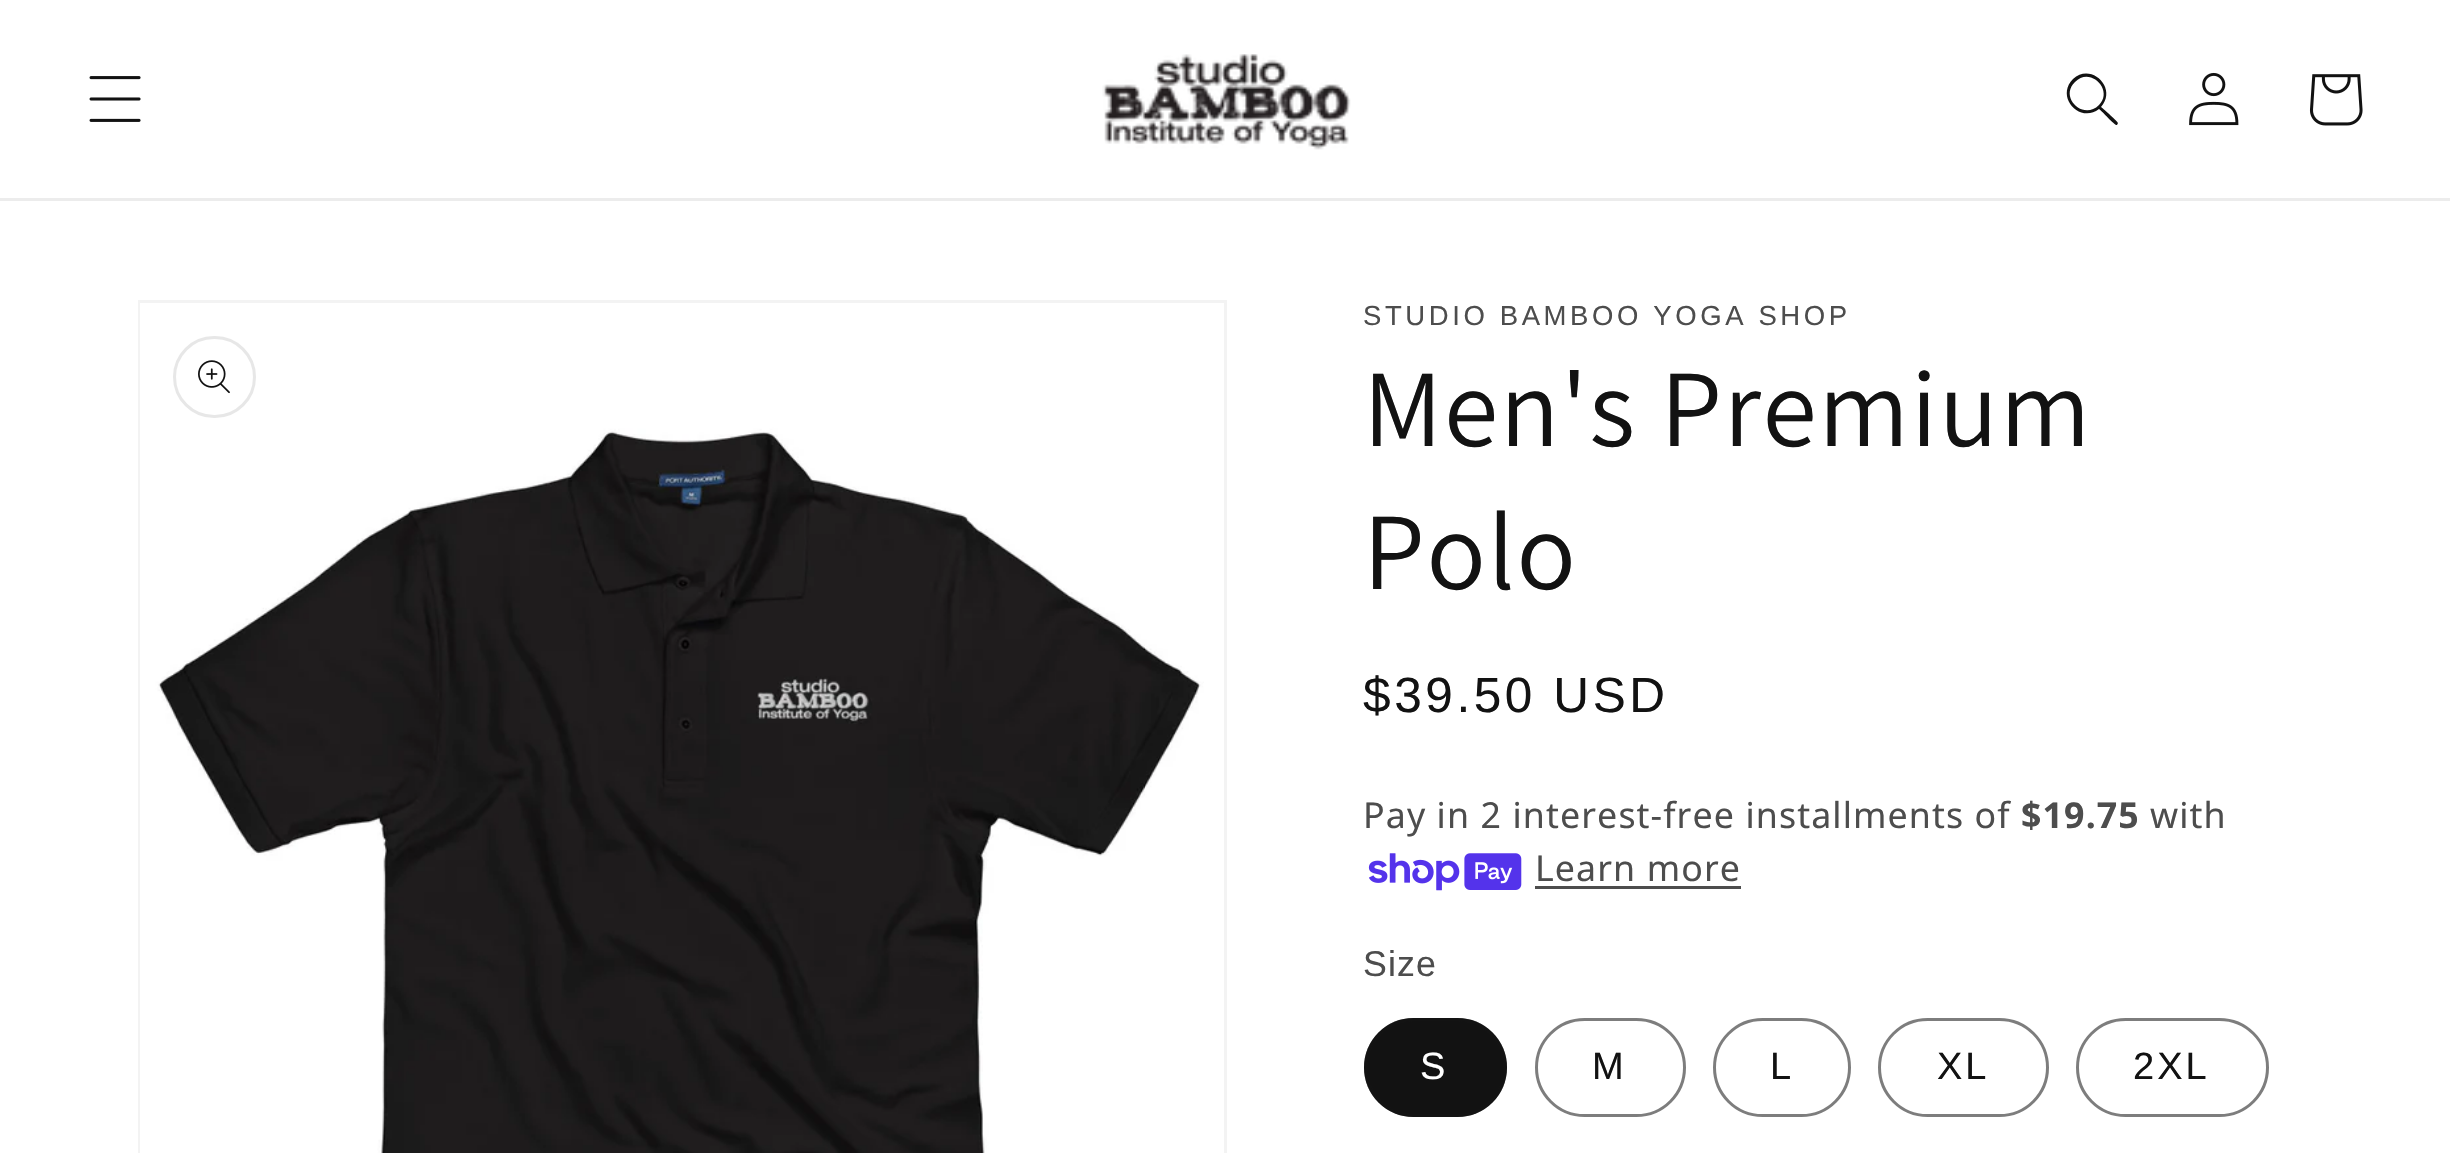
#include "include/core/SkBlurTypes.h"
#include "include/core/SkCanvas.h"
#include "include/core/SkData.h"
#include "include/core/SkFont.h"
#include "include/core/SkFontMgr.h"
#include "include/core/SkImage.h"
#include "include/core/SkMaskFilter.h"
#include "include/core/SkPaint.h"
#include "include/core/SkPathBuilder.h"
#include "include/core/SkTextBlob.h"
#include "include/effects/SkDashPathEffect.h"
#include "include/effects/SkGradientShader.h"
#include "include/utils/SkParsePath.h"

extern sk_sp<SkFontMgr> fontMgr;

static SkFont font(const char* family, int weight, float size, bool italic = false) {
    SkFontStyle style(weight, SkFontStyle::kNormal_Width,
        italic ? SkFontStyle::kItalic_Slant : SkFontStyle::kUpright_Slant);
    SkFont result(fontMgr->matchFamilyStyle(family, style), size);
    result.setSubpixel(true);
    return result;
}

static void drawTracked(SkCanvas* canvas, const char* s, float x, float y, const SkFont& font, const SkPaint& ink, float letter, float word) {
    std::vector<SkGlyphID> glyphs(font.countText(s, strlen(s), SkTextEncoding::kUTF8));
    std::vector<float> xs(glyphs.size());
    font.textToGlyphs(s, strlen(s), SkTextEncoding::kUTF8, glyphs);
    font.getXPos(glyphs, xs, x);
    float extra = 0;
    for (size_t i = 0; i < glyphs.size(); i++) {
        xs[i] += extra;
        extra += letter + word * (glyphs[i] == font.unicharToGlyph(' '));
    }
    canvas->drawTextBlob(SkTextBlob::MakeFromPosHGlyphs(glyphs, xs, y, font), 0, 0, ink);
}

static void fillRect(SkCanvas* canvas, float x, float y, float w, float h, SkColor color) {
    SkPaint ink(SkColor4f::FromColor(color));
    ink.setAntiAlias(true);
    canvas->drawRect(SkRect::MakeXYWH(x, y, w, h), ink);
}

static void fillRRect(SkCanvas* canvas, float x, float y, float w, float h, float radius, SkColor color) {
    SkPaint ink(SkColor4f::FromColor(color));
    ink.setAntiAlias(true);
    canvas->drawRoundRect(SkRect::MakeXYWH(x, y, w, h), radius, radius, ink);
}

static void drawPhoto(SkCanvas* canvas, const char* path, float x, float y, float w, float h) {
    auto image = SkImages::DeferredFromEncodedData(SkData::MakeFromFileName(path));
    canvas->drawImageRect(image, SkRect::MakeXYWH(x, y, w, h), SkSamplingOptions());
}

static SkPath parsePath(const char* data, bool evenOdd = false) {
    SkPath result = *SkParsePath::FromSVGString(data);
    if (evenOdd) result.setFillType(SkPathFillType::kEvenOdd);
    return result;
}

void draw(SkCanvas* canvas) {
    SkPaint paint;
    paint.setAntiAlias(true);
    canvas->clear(0xFFFFFFFF);
    fillRect(canvas, 0, 198, 2450, 3, 0xFFECECEC);
    drawPhoto(canvas, "assets/img1.png", 89, 76, 52, 46);
    drawPhoto(canvas, "assets/img2.png", 1102, 54, 249, 96);
    paint.setColor(0xFF121212);
    canvas->drawPath(parsePath("M2099 105C2083 121 2059 97 2075 82C2090 66 2114 90 2099 105ZM2099 109C2080 124 2055 97 2073 79C2091 62 2118 88 2101 107C2104 109 2118 122 2118 123L2117 125C2115 126 2102 111 2099 109Z", true), paint);
    drawPhoto(canvas, "assets/img3.png", 2189, 72, 50, 54);
    drawPhoto(canvas, "assets/img4.png", 2309, 74, 54, 52);
    paint.setStroke(true);
    paint.setStrokeWidth(3);
    paint.setColor(0xFFF3F3F3);
    canvas->drawRect(SkRect::MakeXYWH(139.5f, 301.5f, 1086, 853), paint);
    drawPhoto(canvas, "assets/img5.png", 140, 303, 1064, 850);
    paint.setColor(0xFFE7E7E7);
    canvas->drawRoundRect(SkRect::MakeXYWH(174.5f, 337.5f, 80, 79), 39.5f, 39.5f, paint);
    drawPhoto(canvas, "assets/img6.png", 198, 360, 32, 34);
    SkFont font1 = font("Liberation Sans", 400, 27.5f);
    paint.setStroke(false);
    paint.setColor(0xFF4D4D4D);
    drawTracked(canvas, "STUDIO BAMBOO YOGA SHOP", 1363, 325, font1, paint, 3.6f, 0);
    SkFont font2 = font("Assistant", 400, 110);
    paint.setColor(0xFF121212);
    drawTracked(canvas, "Men's Premium", 1363, 446, font2, paint, 1.6f, 0);
    drawTracked(canvas, "Polo", 1363, 589, font2, paint, 1.6f, 0);
    SkFont font3 = font("Liberation Sans", 400, 49.5f);
    drawTracked(canvas, "$39.50 USD", 1363, 712, font3, paint, 3.6f, 0);
    SkFont font4 = font("Noto Sans", 400, 35.75f);
    paint.setColor(0xFF4D4D4D);
    drawTracked(canvas, "Pay in 2 interest-free installments of", 1363, 828, font4, paint, 1.1f, 0);
    SkFont font5 = font("Noto Sans", 700, 35.75f);
    drawTracked(canvas, "$19.75", 2021, 828, font5, paint, 1.1f, 0);
    drawTracked(canvas, "with", 2150, 828, font4, paint, 1.1f, 0);
    drawPhoto(canvas, "assets/img7.png", 1368, 853, 154, 38);
    drawTracked(canvas, "Learn more", 1535, 881, font4, paint, 1.1f, 0);
    fillRect(canvas, 1535, 886, 206, 3, 0xFF4D4D4D);
    SkFont font6 = font("Liberation Sans", 400, 35.75f);
    drawTracked(canvas, "Size", 1363, 976, font6, paint, 1.1f, 0);
    fillRRect(canvas, 1364, 1018, 143, 99, 49.5f, 0xFF121212);
    paint.setStroke(true);
    paint.setColor(0x8C121212);
    canvas->drawRoundRect(SkRect::MakeXYWH(1365.5f, 1019.5f, 140, 96), 48, 48, paint);
    SkFont font7 = font("Liberation Sans", 400, 38);
    paint.setStroke(false);
    paint.setColor(0xFFFFFFFF);
    drawTracked(canvas, "S", 1420, 1079, font7, paint, 3, 0);
    paint.setStroke(true);
    paint.setColor(0xFF7D7D7D);
    canvas->drawRoundRect(SkRect::MakeXYWH(1536.5f, 1019.5f, 148, 96), 48, 48, paint);
    paint.setStroke(false);
    paint.setColor(0xFF121212);
    drawTracked(canvas, "M", 1592, 1079, font7, paint, 3, 0);
    paint.setStroke(true);
    paint.setColor(0xFF7D7D7D);
    canvas->drawRoundRect(SkRect::MakeXYWH(1714.5f, 1019.5f, 135, 96), 48, 48, paint);
    paint.setStroke(false);
    paint.setColor(0xFF121212);
    drawTracked(canvas, "L", 1770, 1079, font7, paint, 3, 0);
    paint.setStroke(true);
    paint.setColor(0xFF7D7D7D);
    canvas->drawRoundRect(SkRect::MakeXYWH(1879.5f, 1019.5f, 168, 96), 48, 48, paint);
    paint.setStroke(false);
    paint.setColor(0xFF121212);
    drawTracked(canvas, "XL", 1937, 1079, font7, paint, 3, 0);
    paint.setStroke(true);
    paint.setColor(0xFF7D7D7D);
    canvas->drawRoundRect(SkRect::MakeXYWH(2077.5f, 1019.5f, 190, 96), 48, 48, paint);
    paint.setStroke(false);
    paint.setColor(0xFF121212);
    drawTracked(canvas, "2XL", 2133, 1079, font7, paint, 3, 0);
}
